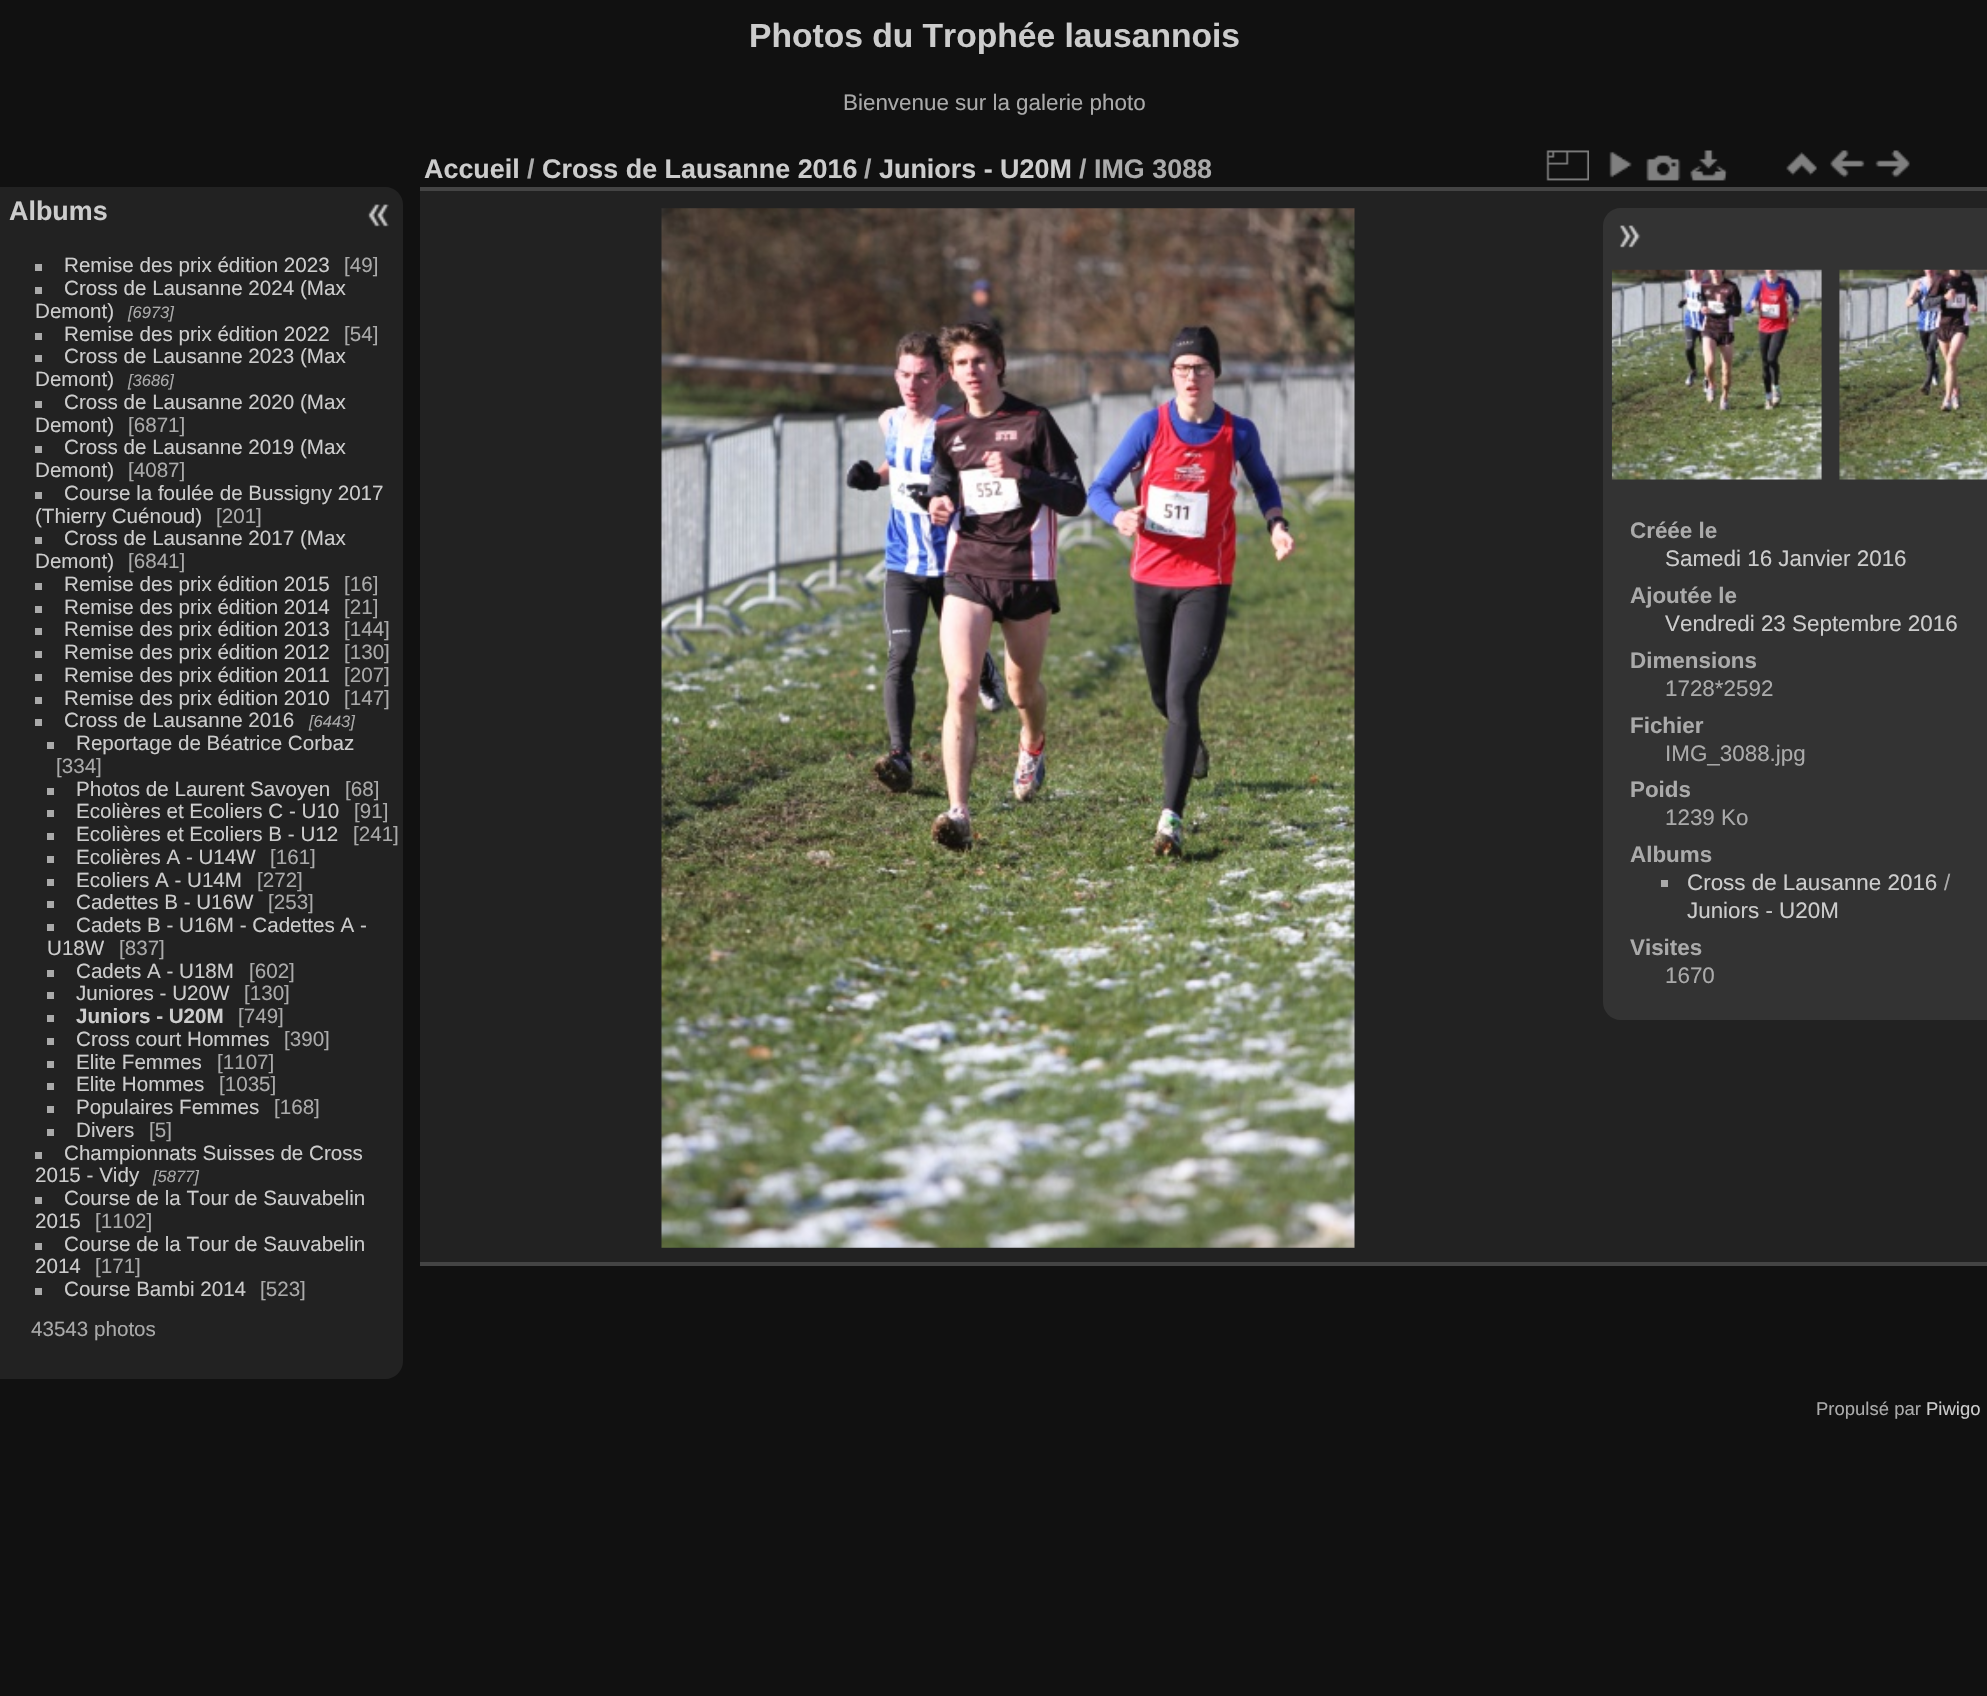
#include "include/core/SkBlurTypes.h"
#include "include/core/SkCanvas.h"
#include "include/core/SkData.h"
#include "include/core/SkFont.h"
#include "include/core/SkFontMgr.h"
#include "include/core/SkImage.h"
#include "include/core/SkMaskFilter.h"
#include "include/core/SkPaint.h"
#include "include/core/SkPathBuilder.h"
#include "include/core/SkTextBlob.h"
#include "include/effects/SkDashPathEffect.h"
#include "include/effects/SkGradientShader.h"
#include "include/utils/SkParsePath.h"

extern sk_sp<SkFontMgr> fontMgr;

static SkFont font(const char* family, int weight, float size, bool italic = false) {
    SkFontStyle style(weight, SkFontStyle::kNormal_Width,
        italic ? SkFontStyle::kItalic_Slant : SkFontStyle::kUpright_Slant);
    SkFont result(fontMgr->matchFamilyStyle(family, style), size);
    result.setSubpixel(true);
    return result;
}

static void drawLabel(SkCanvas* canvas, const char* s, float x, float y, const SkFont& font, SkColor color) {
    SkPaint ink(SkColor4f::FromColor(color));
    ink.setAntiAlias(true);
    canvas->drawString(s, x, y, font, ink);
}

static void fillRect(SkCanvas* canvas, float x, float y, float w, float h, SkColor color) {
    SkPaint ink(SkColor4f::FromColor(color));
    ink.setAntiAlias(true);
    canvas->drawRect(SkRect::MakeXYWH(x, y, w, h), ink);
}

static void drawPhoto(SkCanvas* canvas, const char* path, float x, float y, float w, float h) {
    auto image = SkImages::DeferredFromEncodedData(SkData::MakeFromFileName(path));
    canvas->drawImageRect(image, SkRect::MakeXYWH(x, y, w, h), SkSamplingOptions());
}

static SkPath parsePath(const char* data, bool evenOdd = false) {
    SkPath result = *SkParsePath::FromSVGString(data);
    if (evenOdd) result.setFillType(SkPathFillType::kEvenOdd);
    return result;
}

void draw(SkCanvas* canvas) {
    SkPaint paint;
    paint.setAntiAlias(true);
    canvas->clear(0xFF111111);
    SkFont font1 = font("Liberation Sans", 700, 33.6f);
    drawLabel(canvas, "Photos du Trophée lausannois", 749, 47, font1, 0xFFCCCCCC);
    SkFont font2 = font("Liberation Sans", 400, 22.4f);
    drawLabel(canvas, "Bienvenue sur la galerie photo", 843, 110, font2, 0xFFAAAAAA);
    paint.setColor(0xFF222222);
    canvas->drawPath(parsePath("M0 187H385C395 187 403 195 403 205V1361C403 1371 395 1379 385 1379H0Z"), paint);
    SkFont font3 = font("Liberation Sans", 700, 26.9f);
    drawLabel(canvas, "Albums", 9, 220, font3, 0xFFCCCCCC);
    fillRect(canvas, 35, 264, 7, 7, 0xFFAAAAAA);
    SkFont font4 = font("Liberation Sans", 400, 20.6f);
    drawLabel(canvas, "Remise des prix édition 2023", 64, 272, font4, 0xFFCCCCCC);
    drawLabel(canvas, "[49]", 344, 272, font4, 0xFFAAAAAA);
    fillRect(canvas, 35, 287, 7, 7, 0xFFAAAAAA);
    drawLabel(canvas, "Cross de Lausanne 2024 (Max", 64, 295, font4, 0xFFCCCCCC);
    drawLabel(canvas, "Demont)", 35, 318, font4, 0xFFCCCCCC);
    SkFont font5 = font("Liberation Sans", 400, 16.5f, true);
    drawLabel(canvas, "[6973]", 128, 318, font5, 0xFFAAAAAA);
    fillRect(canvas, 35, 333, 7, 7, 0xFFAAAAAA);
    drawLabel(canvas, "Remise des prix édition 2022", 64, 341, font4, 0xFFCCCCCC);
    drawLabel(canvas, "[54]", 344, 341, font4, 0xFFAAAAAA);
    fillRect(canvas, 35, 355, 7, 7, 0xFFAAAAAA);
    drawLabel(canvas, "Cross de Lausanne 2023 (Max", 64, 363, font4, 0xFFCCCCCC);
    drawLabel(canvas, "Demont)", 35, 386, font4, 0xFFCCCCCC);
    drawLabel(canvas, "[3686]", 128, 386, font5, 0xFFAAAAAA);
    fillRect(canvas, 35, 401, 7, 7, 0xFFAAAAAA);
    drawLabel(canvas, "Cross de Lausanne 2020 (Max", 64, 409, font4, 0xFFCCCCCC);
    drawLabel(canvas, "Demont)", 35, 432, font4, 0xFFCCCCCC);
    drawLabel(canvas, "[6871]", 128, 432, font4, 0xFFAAAAAA);
    fillRect(canvas, 35, 446, 7, 7, 0xFFAAAAAA);
    drawLabel(canvas, "Cross de Lausanne 2019 (Max", 64, 454, font4, 0xFFCCCCCC);
    drawLabel(canvas, "Demont)", 35, 477, font4, 0xFFCCCCCC);
    drawLabel(canvas, "[4087]", 128, 477, font4, 0xFFAAAAAA);
    fillRect(canvas, 35, 492, 7, 7, 0xFFAAAAAA);
    drawLabel(canvas, "Course la foulée de Bussigny 2017", 64, 500, font4, 0xFFCCCCCC);
    drawLabel(canvas, "(Thierry Cuénoud)", 35, 523, font4, 0xFFCCCCCC);
    drawLabel(canvas, "[201]", 216, 523, font4, 0xFFAAAAAA);
    fillRect(canvas, 35, 537, 7, 7, 0xFFAAAAAA);
    drawLabel(canvas, "Cross de Lausanne 2017 (Max", 64, 545, font4, 0xFFCCCCCC);
    drawLabel(canvas, "Demont)", 35, 568, font4, 0xFFCCCCCC);
    drawLabel(canvas, "[6841]", 128, 568, font4, 0xFFAAAAAA);
    fillRect(canvas, 35, 583, 7, 7, 0xFFAAAAAA);
    drawLabel(canvas, "Remise des prix édition 2015", 64, 591, font4, 0xFFCCCCCC);
    drawLabel(canvas, "[16]", 344, 591, font4, 0xFFAAAAAA);
    fillRect(canvas, 35, 606, 7, 7, 0xFFAAAAAA);
    drawLabel(canvas, "Remise des prix édition 2014", 64, 614, font4, 0xFFCCCCCC);
    drawLabel(canvas, "[21]", 344, 614, font4, 0xFFAAAAAA);
    fillRect(canvas, 35, 628, 7, 7, 0xFFAAAAAA);
    drawLabel(canvas, "Remise des prix édition 2013", 64, 636, font4, 0xFFCCCCCC);
    drawLabel(canvas, "[144]", 344, 636, font4, 0xFFAAAAAA);
    fillRect(canvas, 35, 651, 7, 7, 0xFFAAAAAA);
    drawLabel(canvas, "Remise des prix édition 2012", 64, 659, font4, 0xFFCCCCCC);
    drawLabel(canvas, "[130]", 344, 659, font4, 0xFFAAAAAA);
    fillRect(canvas, 35, 674, 7, 7, 0xFFAAAAAA);
    drawLabel(canvas, "Remise des prix édition 2011", 64, 682, font4, 0xFFCCCCCC);
    drawLabel(canvas, "[207]", 344, 682, font4, 0xFFAAAAAA);
    fillRect(canvas, 35, 697, 7, 7, 0xFFAAAAAA);
    drawLabel(canvas, "Remise des prix édition 2010", 64, 705, font4, 0xFFCCCCCC);
    drawLabel(canvas, "[147]", 344, 705, font4, 0xFFAAAAAA);
    fillRect(canvas, 35, 719, 7, 7, 0xFFAAAAAA);
    drawLabel(canvas, "Cross de Lausanne 2016", 64, 727, font4, 0xFFCCCCCC);
    drawLabel(canvas, "[6443]", 309, 727, font5, 0xFFAAAAAA);
    fillRect(canvas, 47, 742, 7, 7, 0xFFAAAAAA);
    drawLabel(canvas, "Reportage de Béatrice Corbaz", 76, 750, font4, 0xFFCCCCCC);
    drawLabel(canvas, "[334]", 56, 773, font4, 0xFFAAAAAA);
    fillRect(canvas, 47, 788, 7, 7, 0xFFAAAAAA);
    drawLabel(canvas, "Photos de Laurent Savoyen", 76, 796, font4, 0xFFCCCCCC);
    drawLabel(canvas, "[68]", 345, 796, font4, 0xFFAAAAAA);
    fillRect(canvas, 47, 810, 7, 7, 0xFFAAAAAA);
    drawLabel(canvas, "Ecolières et Ecoliers C - U10", 76, 818, font4, 0xFFCCCCCC);
    drawLabel(canvas, "[91]", 354, 818, font4, 0xFFAAAAAA);
    fillRect(canvas, 47, 833, 7, 7, 0xFFAAAAAA);
    drawLabel(canvas, "Ecolières et Ecoliers B - U12", 76, 841, font4, 0xFFCCCCCC);
    drawLabel(canvas, "[241]", 353, 841, font4, 0xFFAAAAAA);
    fillRect(canvas, 47, 856, 7, 7, 0xFFAAAAAA);
    drawLabel(canvas, "Ecolières A - U14W", 76, 864, font4, 0xFFCCCCCC);
    drawLabel(canvas, "[161]", 270, 864, font4, 0xFFAAAAAA);
    fillRect(canvas, 47, 879, 7, 7, 0xFFAAAAAA);
    drawLabel(canvas, "Ecoliers A - U14M", 76, 887, font4, 0xFFCCCCCC);
    drawLabel(canvas, "[272]", 257, 887, font4, 0xFFAAAAAA);
    fillRect(canvas, 47, 901, 7, 7, 0xFFAAAAAA);
    drawLabel(canvas, "Cadettes B - U16W", 76, 909, font4, 0xFFCCCCCC);
    drawLabel(canvas, "[253]", 268, 909, font4, 0xFFAAAAAA);
    fillRect(canvas, 47, 924, 7, 7, 0xFFAAAAAA);
    drawLabel(canvas, "Cadets B - U16M - Cadettes A -", 76, 932, font4, 0xFFCCCCCC);
    drawLabel(canvas, "U18W", 47, 955, font4, 0xFFCCCCCC);
    drawLabel(canvas, "[837]", 119, 955, font4, 0xFFAAAAAA);
    fillRect(canvas, 47, 970, 7, 7, 0xFFAAAAAA);
    drawLabel(canvas, "Cadets A - U18M", 76, 978, font4, 0xFFCCCCCC);
    drawLabel(canvas, "[602]", 249, 978, font4, 0xFFAAAAAA);
    fillRect(canvas, 47, 992, 7, 7, 0xFFAAAAAA);
    drawLabel(canvas, "Juniores - U20W", 76, 1000, font4, 0xFFCCCCCC);
    drawLabel(canvas, "[130]", 244, 1000, font4, 0xFFAAAAAA);
    fillRect(canvas, 47, 1015, 7, 7, 0xFFAAAAAA);
    SkFont font6 = font("Liberation Sans", 700, 20.6f);
    drawLabel(canvas, "Juniors - U20M", 76, 1023, font6, 0xFFCCCCCC);
    drawLabel(canvas, "[749]", 238, 1023, font4, 0xFFAAAAAA);
    fillRect(canvas, 47, 1038, 7, 7, 0xFFAAAAAA);
    drawLabel(canvas, "Cross court Hommes", 76, 1046, font4, 0xFFCCCCCC);
    drawLabel(canvas, "[390]", 284, 1046, font4, 0xFFAAAAAA);
    fillRect(canvas, 47, 1061, 7, 7, 0xFFAAAAAA);
    drawLabel(canvas, "Elite Femmes", 76, 1069, font4, 0xFFCCCCCC);
    drawLabel(canvas, "[1107]", 217, 1069, font4, 0xFFAAAAAA);
    fillRect(canvas, 47, 1083, 7, 7, 0xFFAAAAAA);
    drawLabel(canvas, "Elite Hommes", 76, 1091, font4, 0xFFCCCCCC);
    drawLabel(canvas, "[1035]", 219, 1091, font4, 0xFFAAAAAA);
    fillRect(canvas, 47, 1106, 7, 7, 0xFFAAAAAA);
    drawLabel(canvas, "Populaires Femmes", 76, 1114, font4, 0xFFCCCCCC);
    drawLabel(canvas, "[168]", 274, 1114, font4, 0xFFAAAAAA);
    fillRect(canvas, 47, 1129, 7, 7, 0xFFAAAAAA);
    drawLabel(canvas, "Divers", 76, 1137, font4, 0xFFCCCCCC);
    drawLabel(canvas, "[5]", 149, 1137, font4, 0xFFAAAAAA);
    fillRect(canvas, 35, 1152, 7, 7, 0xFFAAAAAA);
    drawLabel(canvas, "Championnats Suisses de Cross", 64, 1160, font4, 0xFFCCCCCC);
    drawLabel(canvas, "2015 - Vidy", 35, 1182, font4, 0xFFCCCCCC);
    drawLabel(canvas, "[5877]", 153, 1182, font5, 0xFFAAAAAA);
    fillRect(canvas, 35, 1197, 7, 7, 0xFFAAAAAA);
    drawLabel(canvas, "Course de la Tour de Sauvabelin", 64, 1205, font4, 0xFFCCCCCC);
    drawLabel(canvas, "2015", 35, 1228, font4, 0xFFCCCCCC);
    drawLabel(canvas, "[1102]", 95, 1228, font4, 0xFFAAAAAA);
    fillRect(canvas, 35, 1243, 7, 7, 0xFFAAAAAA);
    drawLabel(canvas, "Course de la Tour de Sauvabelin", 64, 1251, font4, 0xFFCCCCCC);
    drawLabel(canvas, "2014", 35, 1273, font4, 0xFFCCCCCC);
    drawLabel(canvas, "[171]", 95, 1273, font4, 0xFFAAAAAA);
    fillRect(canvas, 35, 1288, 7, 7, 0xFFAAAAAA);
    drawLabel(canvas, "Course Bambi 2014", 64, 1296, font4, 0xFFCCCCCC);
    drawLabel(canvas, "[523]", 260, 1296, font4, 0xFFAAAAAA);
    drawLabel(canvas, "43543 photos", 31, 1336, font4, 0xFFAAAAAA);
    fillRect(canvas, 420, 191, 1567, 1071, 0xFF222222);
    fillRect(canvas, 420, 1262, 1567, 4, 0xFF444444);
    fillRect(canvas, 420, 187, 1567, 4, 0xFF444444);
    drawLabel(canvas, "Accueil", 424, 178, font3, 0xFFCCCCCC);
    drawLabel(canvas, "/", 527, 178, font3, 0xFFAAAAAA);
    drawLabel(canvas, "Cross de Lausanne 2016", 542, 178, font3, 0xFFCCCCCC);
    drawLabel(canvas, "/", 864, 178, font3, 0xFFAAAAAA);
    drawLabel(canvas, "Juniors - U20M", 879, 178, font3, 0xFFCCCCCC);
    drawLabel(canvas, "/ IMG 3088", 1079, 178, font3, 0xFFAAAAAA);
    drawPhoto(canvas, "assets/img1.png", 1546, 150, 43, 31);
    drawPhoto(canvas, "assets/img2.png", 1609, 151, 23, 27);
    drawPhoto(canvas, "assets/img3.png", 1646, 155, 35, 26);
    drawPhoto(canvas, "assets/img4.png", 1690, 150, 38, 31);
    drawPhoto(canvas, "assets/img5.png", 1786, 152, 31, 24);
    drawPhoto(canvas, "assets/img6.png", 1830, 150, 35, 28);
    drawPhoto(canvas, "assets/img7.png", 1875, 150, 35, 28);
    drawPhoto(canvas, "assets/img8.png", 661, 208, 694, 1040);
    paint.setColor(0xFF333333);
    canvas->drawPath(parsePath("M1621 208H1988V1020H1621C1611 1020 1603 1012 1603 1002V226C1603 216 1611 208 1621 208Z"), paint);
    drawPhoto(canvas, "assets/img9.png", 1619, 225, 22, 23);
    drawPhoto(canvas, "assets/img10.png", 1611, 269, 211, 211);
    drawPhoto(canvas, "assets/img11.png", 1839, 269, 148, 211);
    SkFont font7 = font("Liberation Sans", 700, 22.4f);
    drawLabel(canvas, "Créée le", 1630, 538, font7, 0xFFAAAAAA);
    drawLabel(canvas, "Samedi 16 Janvier 2016", 1665, 566, font2, 0xFFCCCCCC);
    drawLabel(canvas, "Ajoutée le", 1630, 603, font7, 0xFFAAAAAA);
    drawLabel(canvas, "Vendredi 23 Septembre 2016", 1665, 631, font2, 0xFFCCCCCC);
    drawLabel(canvas, "Dimensions", 1630, 668, font7, 0xFFAAAAAA);
    drawLabel(canvas, "1728*2592", 1665, 696, font2, 0xFFAAAAAA);
    drawLabel(canvas, "Fichier", 1630, 733, font7, 0xFFAAAAAA);
    drawLabel(canvas, "IMG_3088.jpg", 1665, 761, font2, 0xFFAAAAAA);
    drawLabel(canvas, "Poids", 1630, 797, font7, 0xFFAAAAAA);
    drawLabel(canvas, "1239 Ko", 1665, 825, font2, 0xFFAAAAAA);
    drawLabel(canvas, "Albums", 1630, 862, font7, 0xFFAAAAAA);
    fillRect(canvas, 1661, 880, 7, 7, 0xFFAAAAAA);
    drawLabel(canvas, "Cross de Lausanne 2016", 1687, 890, font2, 0xFFCCCCCC);
    drawLabel(canvas, "/", 1944, 890, font2, 0xFFAAAAAA);
    drawLabel(canvas, "Juniors - U20M", 1687, 918, font2, 0xFFCCCCCC);
    drawLabel(canvas, "Visites", 1630, 955, font7, 0xFFAAAAAA);
    drawLabel(canvas, "1670", 1665, 983, font2, 0xFFAAAAAA);
    drawPhoto(canvas, "assets/img12.png", 367, 204, 22, 23);
    SkFont font8 = font("Liberation Sans", 400, 18.5f);
    drawLabel(canvas, "Propulsé par", 1816, 1415, font8, 0xFFAAAAAA);
    drawLabel(canvas, "Piwigo", 1926, 1415, font8, 0xFFCCCCCC);
}
